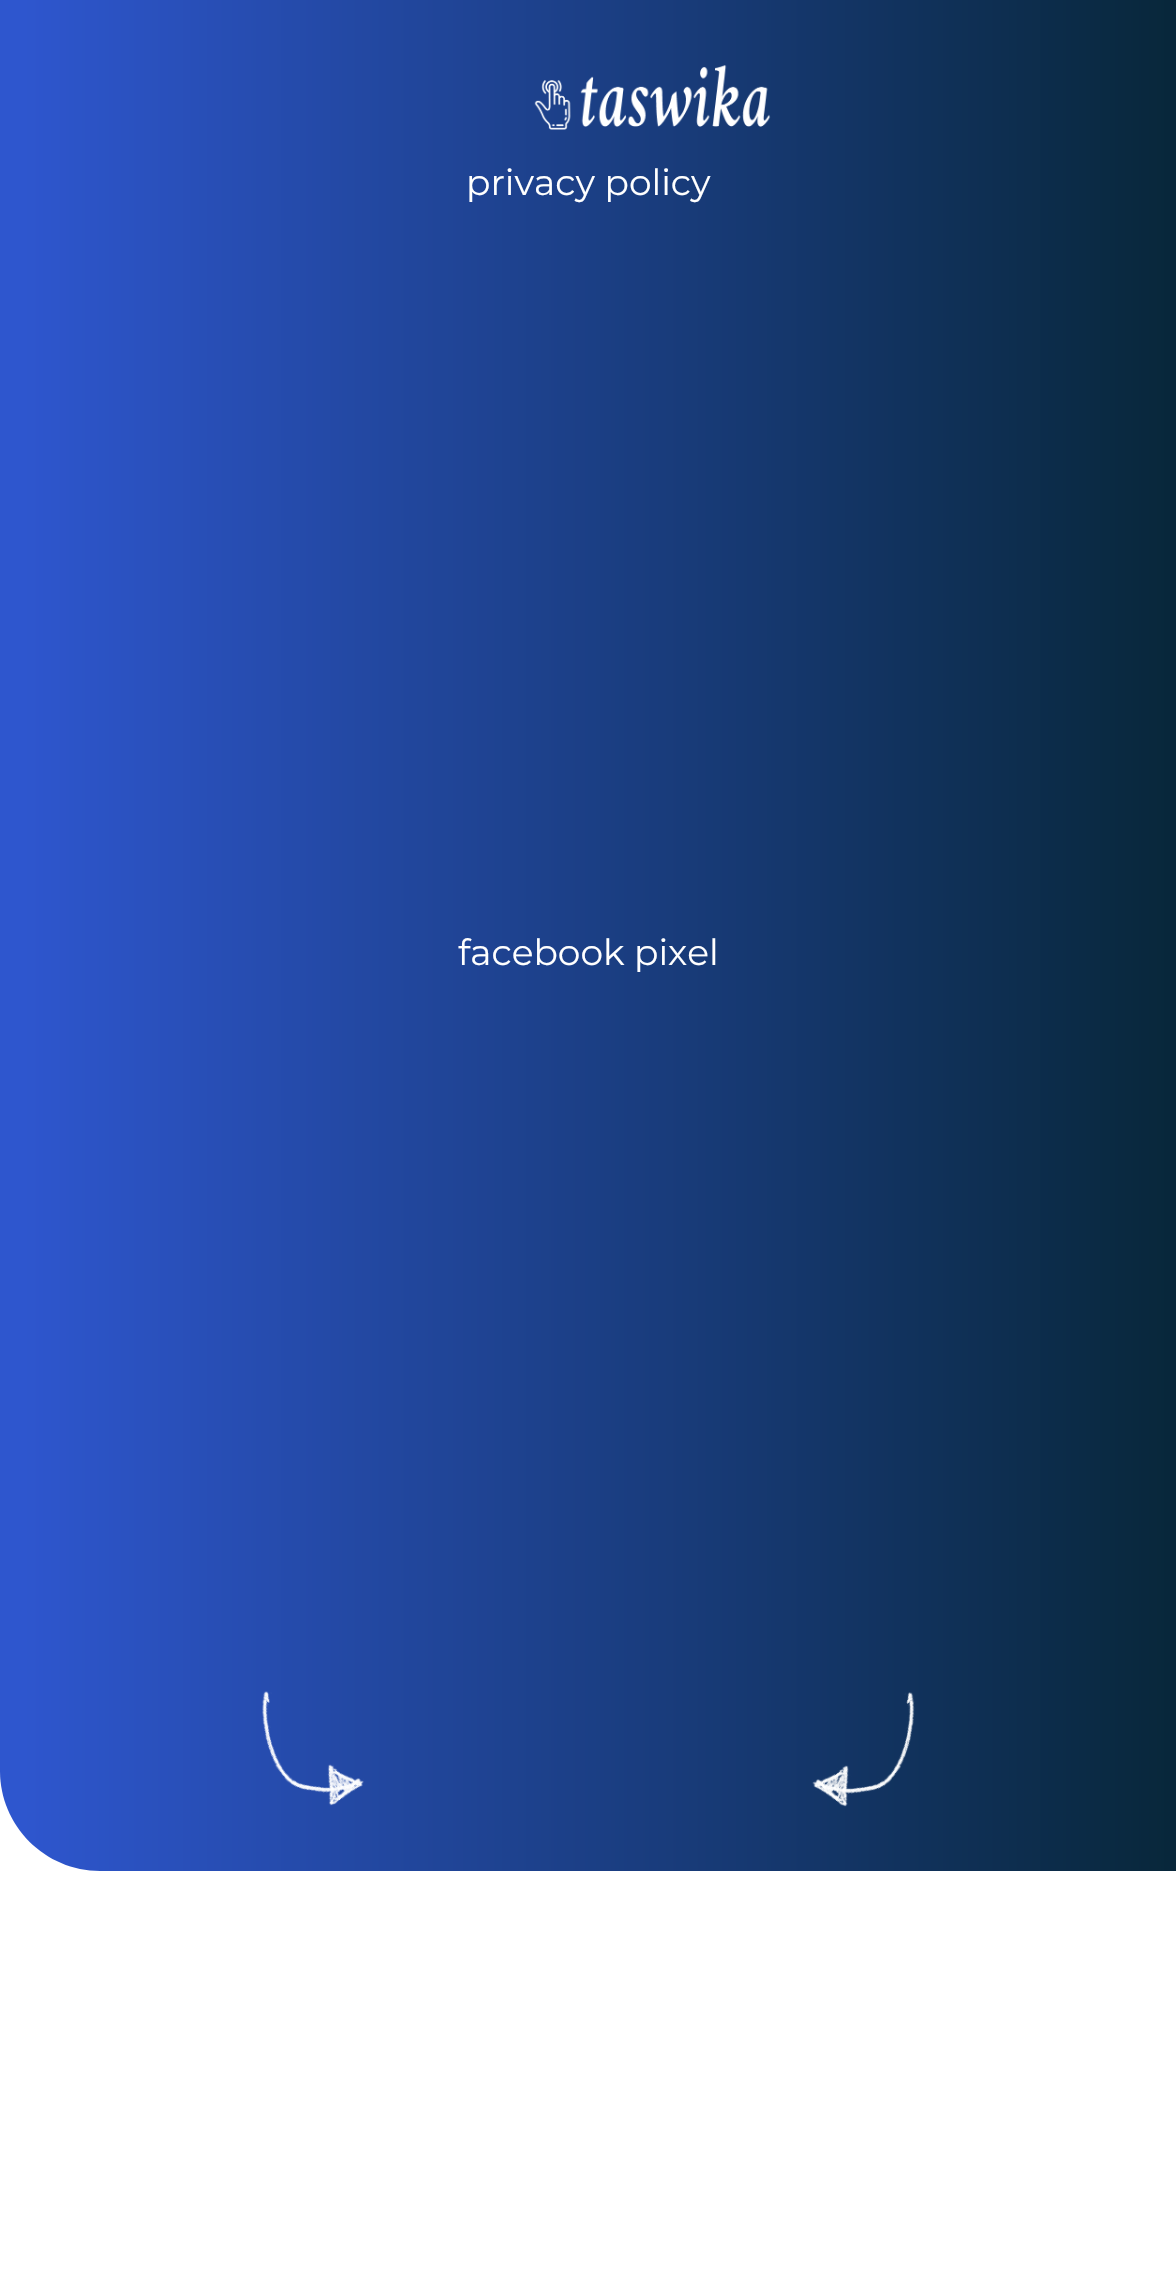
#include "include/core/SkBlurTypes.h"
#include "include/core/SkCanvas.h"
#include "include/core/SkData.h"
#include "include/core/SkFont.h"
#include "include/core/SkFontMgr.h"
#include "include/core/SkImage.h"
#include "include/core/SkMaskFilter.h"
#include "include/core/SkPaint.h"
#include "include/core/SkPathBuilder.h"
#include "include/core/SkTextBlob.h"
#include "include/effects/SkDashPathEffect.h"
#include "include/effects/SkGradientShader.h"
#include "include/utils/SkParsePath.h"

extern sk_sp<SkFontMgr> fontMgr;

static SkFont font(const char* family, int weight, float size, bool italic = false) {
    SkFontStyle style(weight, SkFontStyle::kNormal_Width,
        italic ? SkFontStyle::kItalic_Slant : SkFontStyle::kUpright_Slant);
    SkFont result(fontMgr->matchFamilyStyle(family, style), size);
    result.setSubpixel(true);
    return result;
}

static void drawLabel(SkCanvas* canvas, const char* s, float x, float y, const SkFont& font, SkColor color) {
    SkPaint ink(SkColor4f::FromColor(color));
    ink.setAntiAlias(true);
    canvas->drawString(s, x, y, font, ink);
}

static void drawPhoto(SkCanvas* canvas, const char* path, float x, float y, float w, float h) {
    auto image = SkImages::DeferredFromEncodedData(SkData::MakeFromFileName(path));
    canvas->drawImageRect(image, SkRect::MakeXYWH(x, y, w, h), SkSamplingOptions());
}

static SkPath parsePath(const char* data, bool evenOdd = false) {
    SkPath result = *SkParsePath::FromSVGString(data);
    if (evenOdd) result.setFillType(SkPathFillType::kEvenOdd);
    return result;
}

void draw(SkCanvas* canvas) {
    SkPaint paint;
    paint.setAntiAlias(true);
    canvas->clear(0xFFFFFFFF);
    {
        const SkColor colors[] = {0xFF2E56CE, 0xFF08273A};
        const float stops[] = {0.02f, 1};
        const SkPoint ends[] = {{0, 936}, {1176, 936}};
        paint.setShader(SkGradientShader::MakeLinear(ends, colors, stops, 2, SkTileMode::kClamp));
        paint.setAlpha(255);
    }
    canvas->drawPath(parsePath("M0 0H1176V1871H100C45 1871 0 1826 0 1771Z"), paint);
    drawPhoto(canvas, "assets/img1.png", 534, 65, 237, 65);
    SkFont font1 = font("Montserrat", 400, 36);
    drawLabel(canvas, "privacy policy", 466, 195, font1, 0xFFFFFFFF);
    drawLabel(canvas, "facebook pixel", 458, 965, font1, 0xFFFFFFFF);
    drawPhoto(canvas, "assets/img2.png", 262, 1691, 102, 115);
    drawPhoto(canvas, "assets/img3.png", 812, 1692, 103, 115);
}
